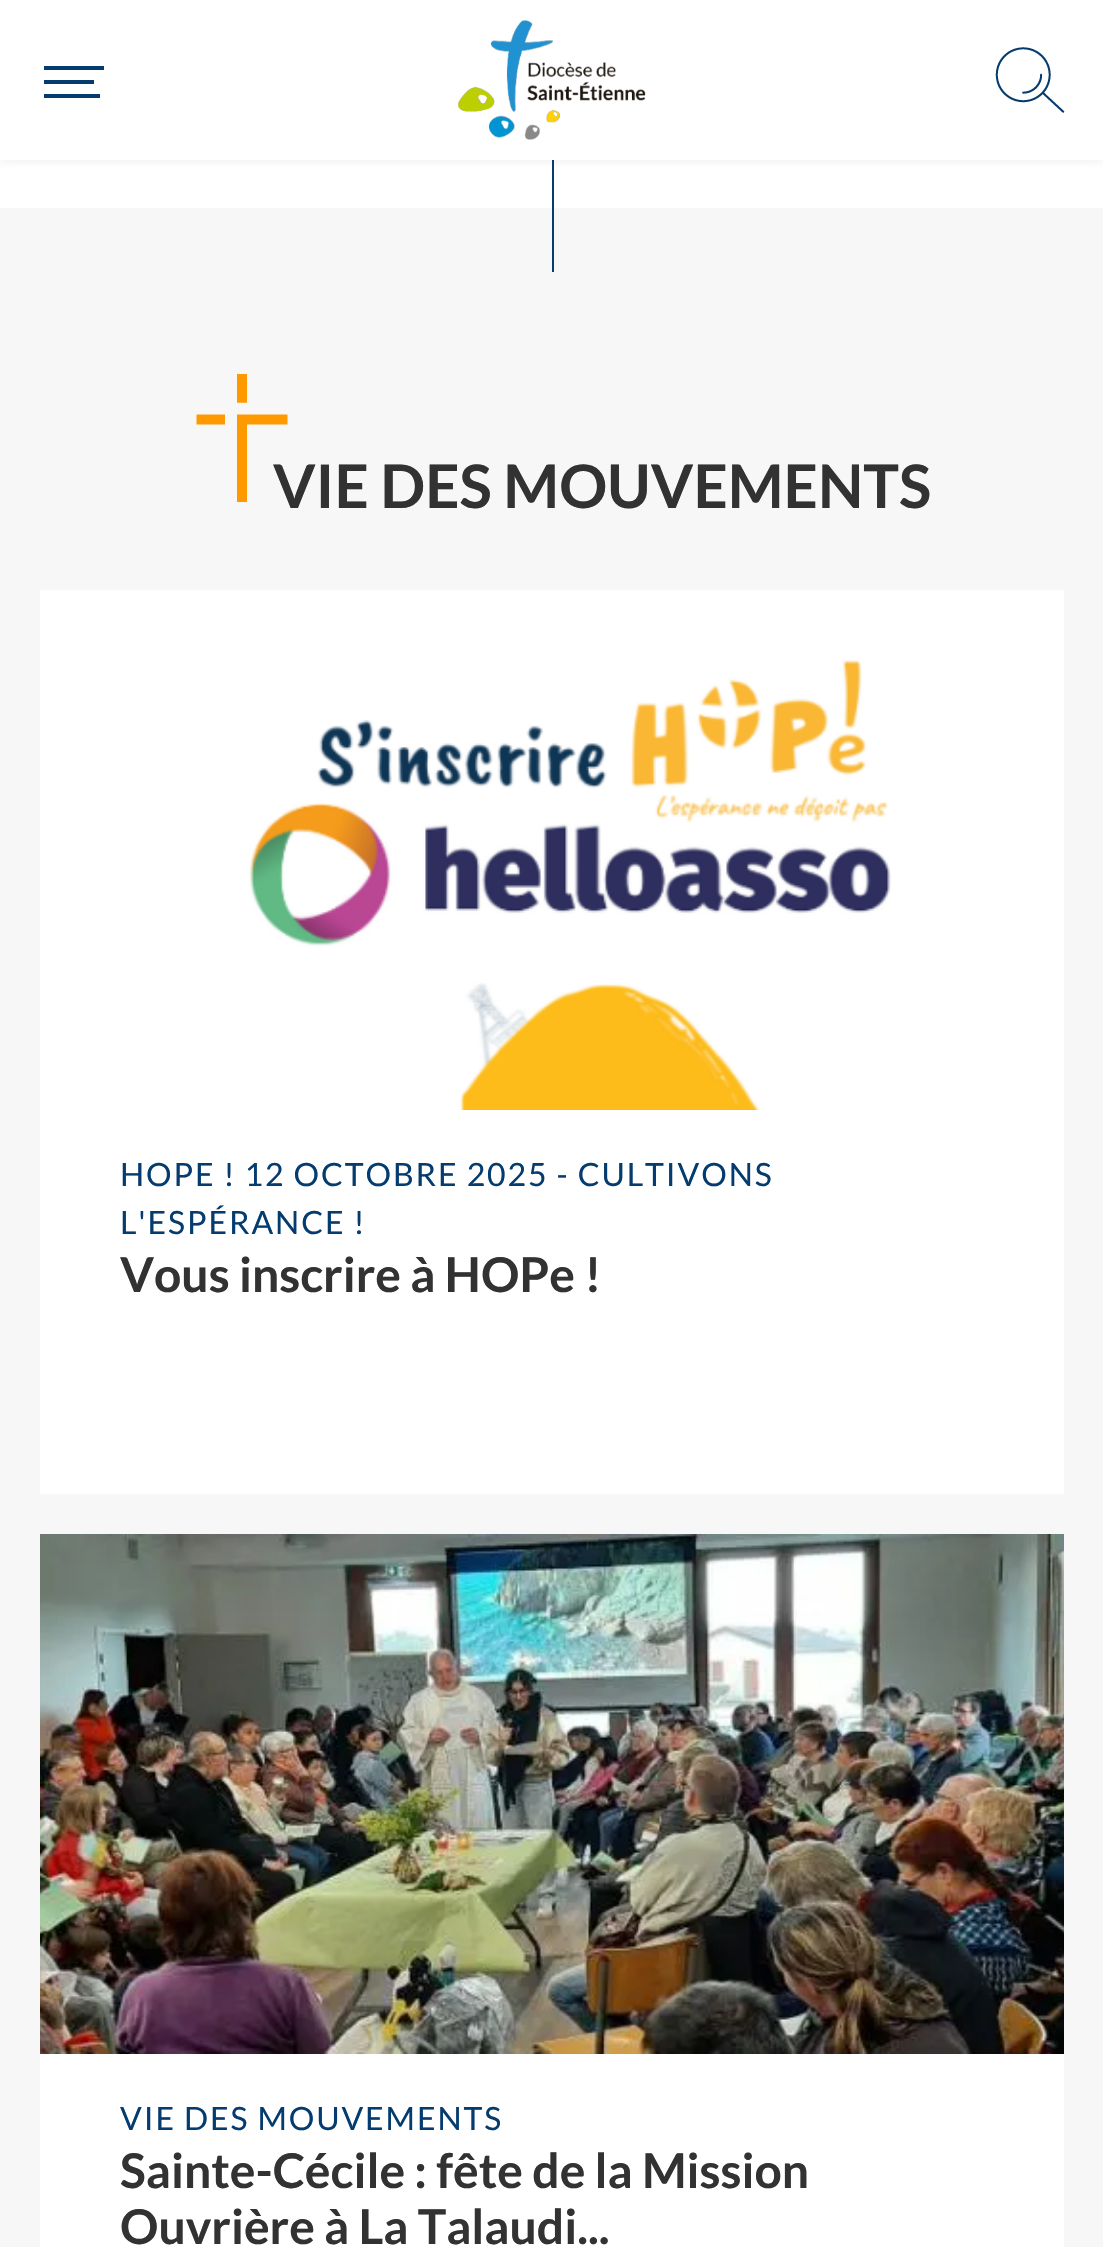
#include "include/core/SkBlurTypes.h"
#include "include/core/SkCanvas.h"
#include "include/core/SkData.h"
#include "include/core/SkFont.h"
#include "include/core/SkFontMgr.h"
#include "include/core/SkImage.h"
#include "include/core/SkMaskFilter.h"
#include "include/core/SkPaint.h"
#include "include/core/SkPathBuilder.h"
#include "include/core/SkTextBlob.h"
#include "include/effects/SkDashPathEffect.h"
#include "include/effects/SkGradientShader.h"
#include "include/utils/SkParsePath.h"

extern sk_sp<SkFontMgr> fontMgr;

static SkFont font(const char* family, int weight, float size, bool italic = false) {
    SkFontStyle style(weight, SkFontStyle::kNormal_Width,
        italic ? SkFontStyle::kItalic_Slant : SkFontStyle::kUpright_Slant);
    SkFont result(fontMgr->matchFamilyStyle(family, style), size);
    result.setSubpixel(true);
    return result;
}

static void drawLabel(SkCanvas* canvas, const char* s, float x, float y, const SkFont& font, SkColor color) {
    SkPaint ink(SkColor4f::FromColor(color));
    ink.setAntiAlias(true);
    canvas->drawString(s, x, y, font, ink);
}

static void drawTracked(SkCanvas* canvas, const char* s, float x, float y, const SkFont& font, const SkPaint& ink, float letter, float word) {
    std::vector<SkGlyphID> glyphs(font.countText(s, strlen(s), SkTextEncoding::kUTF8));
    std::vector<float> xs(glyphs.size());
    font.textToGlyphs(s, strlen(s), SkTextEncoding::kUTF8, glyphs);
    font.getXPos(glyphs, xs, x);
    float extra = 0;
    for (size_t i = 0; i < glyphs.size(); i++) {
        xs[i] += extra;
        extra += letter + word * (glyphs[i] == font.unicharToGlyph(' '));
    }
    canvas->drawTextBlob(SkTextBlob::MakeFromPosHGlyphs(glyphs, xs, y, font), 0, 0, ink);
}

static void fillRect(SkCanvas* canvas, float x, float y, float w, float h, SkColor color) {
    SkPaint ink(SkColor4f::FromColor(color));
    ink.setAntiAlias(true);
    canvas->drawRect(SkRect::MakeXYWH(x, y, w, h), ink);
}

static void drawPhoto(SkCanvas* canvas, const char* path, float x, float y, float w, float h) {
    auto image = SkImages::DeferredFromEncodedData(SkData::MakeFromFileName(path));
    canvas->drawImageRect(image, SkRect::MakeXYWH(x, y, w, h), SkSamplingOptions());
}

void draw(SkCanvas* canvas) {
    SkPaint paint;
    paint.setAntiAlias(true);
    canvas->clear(0xFFFFFFFF);
    fillRect(canvas, 0, 208, 1103, 2039, 0xFFF7F7F7);
    fillRect(canvas, 552, 160, 2, 112, 0xFF053C70);
    paint.setColor(0x1A323232);
    paint.setMaskFilter(SkMaskFilter::MakeBlur(kNormal_SkBlurStyle, 5));
    canvas->drawRect(SkRect::MakeXYWH(0, 0, 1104, 160), paint);
    paint.setMaskFilter(nullptr);
    fillRect(canvas, 0, 0, 1103, 160, 0xFFFFFFFF);
    drawPhoto(canvas, "assets/img1.png", 458, 20, 188, 120);
    fillRect(canvas, 44, 66, 60, 4, 0xFF053C70);
    fillRect(canvas, 44, 80, 50, 4, 0xFF053C70);
    fillRect(canvas, 44, 94, 56, 4, 0xFF053C70);
    drawPhoto(canvas, "assets/img2.png", 995, 47, 70, 66);
    SkFont font1 = font("Lato", 700, 60);
    drawLabel(canvas, "VIE DES MOUVEMENTS", 273, 508, font1, 0xFF323232);
    drawPhoto(canvas, "assets/img3.png", 196, 374, 92, 128);
    drawPhoto(canvas, "assets/img4.png", 40, 590, 1024, 520);
    fillRect(canvas, 40, 1110, 1024, 384, 0xFFFFFFFF);
    SkFont font2 = font("Lato", 400, 32);
    paint.setColor(0xFF053C70);
    drawTracked(canvas, "HOPE ! 12 OCTOBRE 2025 - CULTIVONS", 120, 1186, font2, paint, 1.9f, 0);
    drawTracked(canvas, "L'ESPÉRANCE !", 120, 1234, font2, paint, 1.9f, 0);
    SkFont font3 = font("Lato", 700, 48);
    drawLabel(canvas, "Vous inscrire à HOPe !", 120, 1292, font3, 0xFF323232);
    drawPhoto(canvas, "assets/img5.png", 40, 1534, 1024, 520);
    fillRect(canvas, 40, 2054, 1024, 193, 0xFFFFFFFF);
    drawTracked(canvas, "VIE DES MOUVEMENTS", 120, 2130, font2, paint, 1.9f, 0);
    drawLabel(canvas, "Sainte-Cécile : fête de la Mission", 120, 2188, font3, 0xFF323232);
    drawLabel(canvas, "Ouvrière à La Talaudi...", 120, 2244, font3, 0xFF323232);
}
